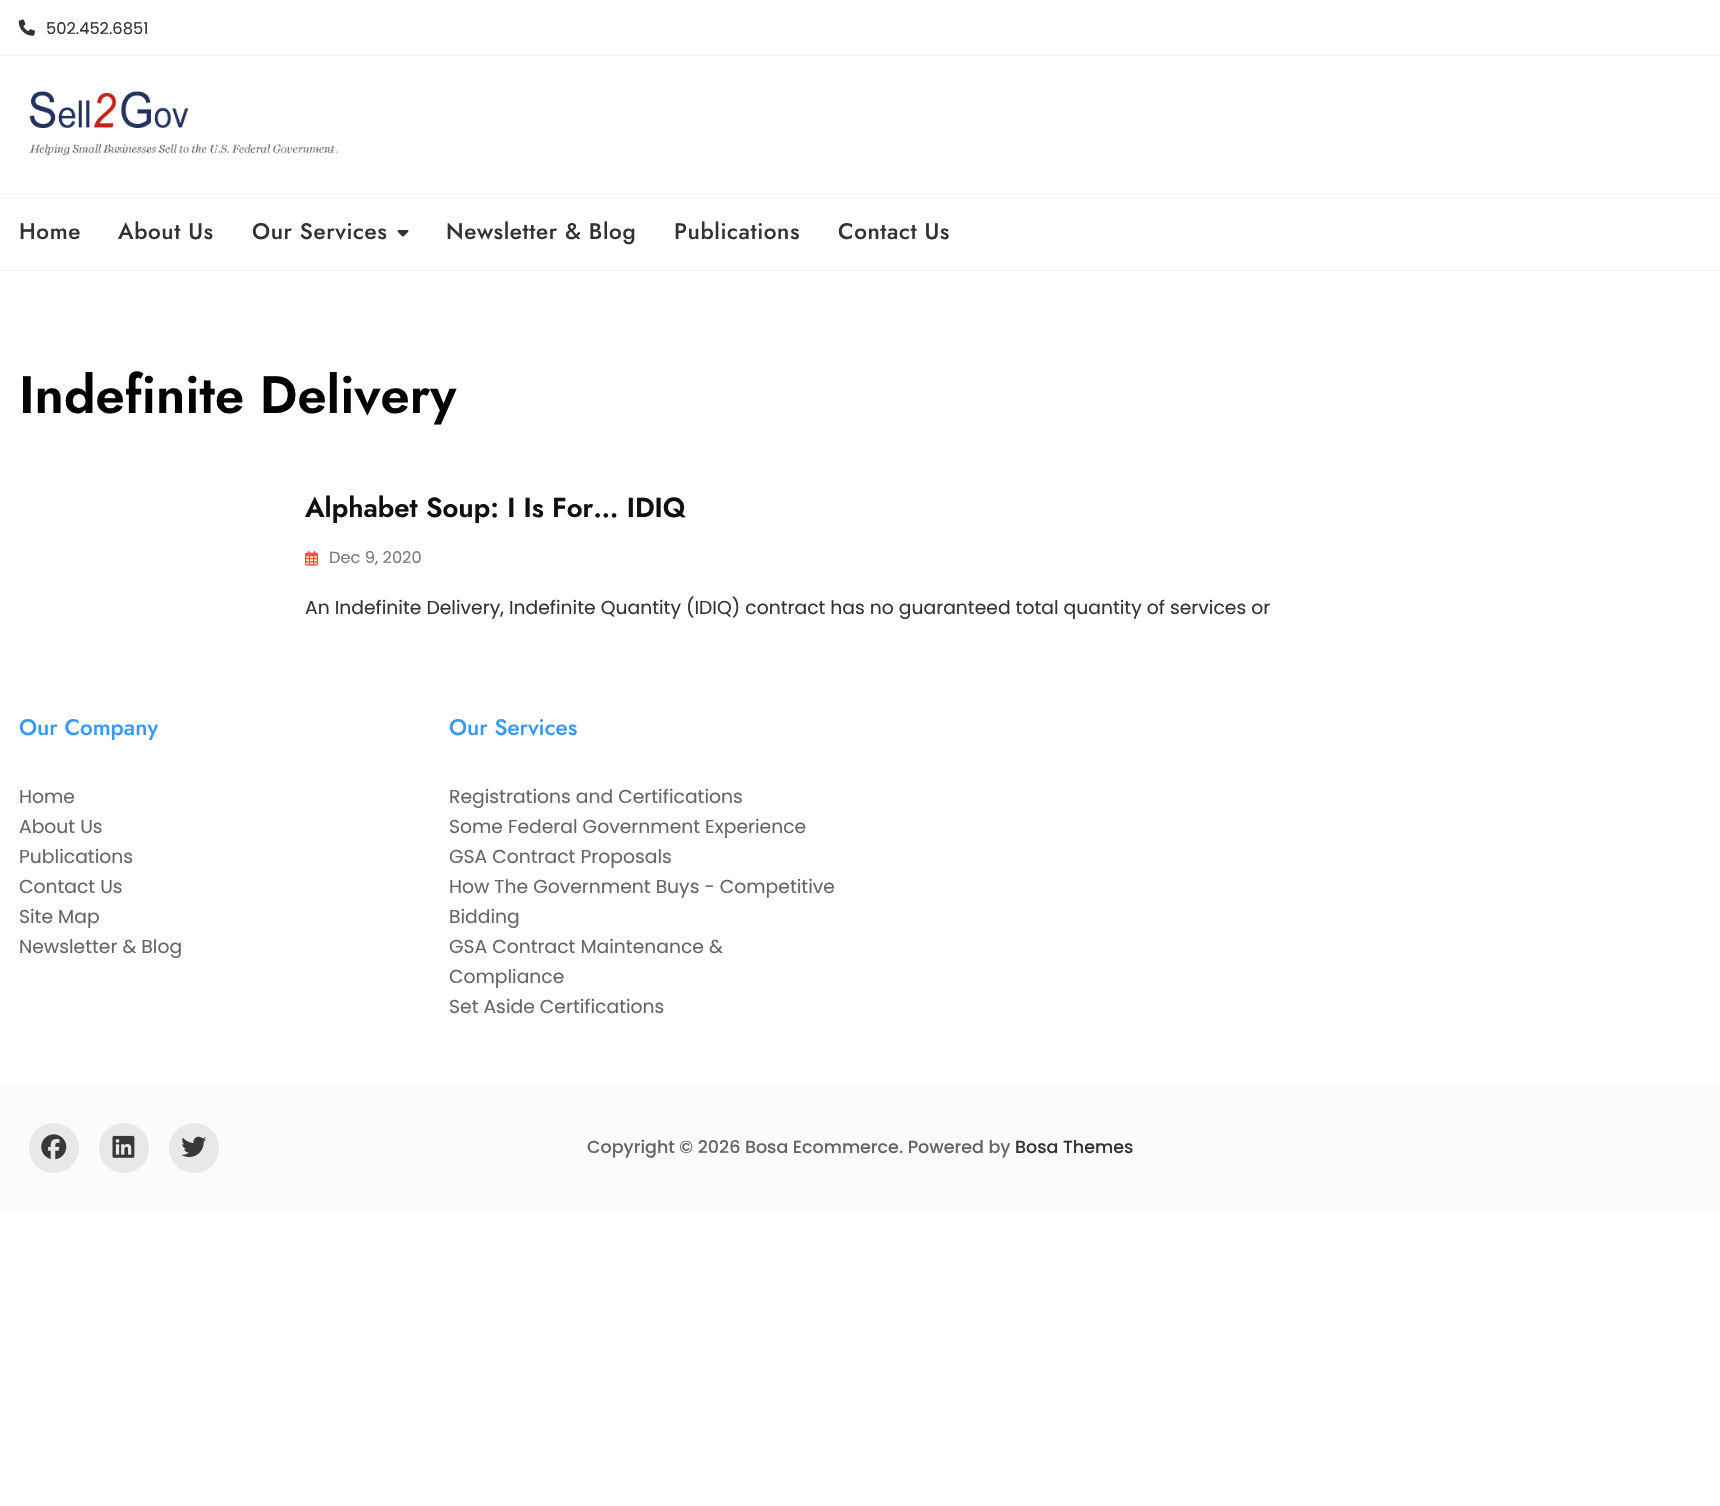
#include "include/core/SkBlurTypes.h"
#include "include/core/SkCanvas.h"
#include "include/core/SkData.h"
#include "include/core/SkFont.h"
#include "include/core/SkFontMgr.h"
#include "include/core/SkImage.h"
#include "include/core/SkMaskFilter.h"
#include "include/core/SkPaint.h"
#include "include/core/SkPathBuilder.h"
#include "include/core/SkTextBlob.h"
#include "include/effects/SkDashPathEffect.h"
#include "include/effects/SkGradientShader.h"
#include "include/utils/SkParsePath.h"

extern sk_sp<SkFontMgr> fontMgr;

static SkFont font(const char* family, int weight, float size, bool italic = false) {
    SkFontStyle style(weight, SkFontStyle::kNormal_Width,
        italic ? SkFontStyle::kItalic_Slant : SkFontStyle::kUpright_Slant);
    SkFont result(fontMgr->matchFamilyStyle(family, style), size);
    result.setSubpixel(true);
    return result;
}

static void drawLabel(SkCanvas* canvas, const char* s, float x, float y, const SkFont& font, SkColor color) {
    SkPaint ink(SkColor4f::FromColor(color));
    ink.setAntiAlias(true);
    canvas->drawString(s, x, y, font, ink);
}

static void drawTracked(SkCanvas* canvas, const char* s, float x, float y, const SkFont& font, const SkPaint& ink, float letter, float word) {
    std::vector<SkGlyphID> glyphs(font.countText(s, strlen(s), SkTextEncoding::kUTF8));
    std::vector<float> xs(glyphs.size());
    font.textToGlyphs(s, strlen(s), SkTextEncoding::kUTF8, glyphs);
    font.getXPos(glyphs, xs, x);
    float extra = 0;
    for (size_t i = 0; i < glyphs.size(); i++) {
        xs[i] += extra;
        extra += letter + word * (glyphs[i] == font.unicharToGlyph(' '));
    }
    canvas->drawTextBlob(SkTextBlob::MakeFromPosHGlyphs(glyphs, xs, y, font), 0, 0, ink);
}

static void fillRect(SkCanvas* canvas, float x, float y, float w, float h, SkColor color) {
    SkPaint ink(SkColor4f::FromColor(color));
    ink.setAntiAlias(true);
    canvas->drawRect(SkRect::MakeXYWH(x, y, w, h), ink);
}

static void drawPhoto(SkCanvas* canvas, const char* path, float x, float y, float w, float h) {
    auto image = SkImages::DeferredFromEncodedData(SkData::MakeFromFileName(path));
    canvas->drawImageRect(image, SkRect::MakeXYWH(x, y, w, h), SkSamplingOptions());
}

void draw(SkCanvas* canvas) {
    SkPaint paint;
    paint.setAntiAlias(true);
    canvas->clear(0xFFFFFFFF);
    fillRect(canvas, 0, 55, 1720, 1, 0xFFF5F5F5);
    drawPhoto(canvas, "assets/img1.png", 18, 19, 17, 17);
    SkFont font1 = font("Poppins", 400, 16.25f);
    drawLabel(canvas, "502.452.6851", 46, 34, font1, 0xFF333333);
    fillRect(canvas, 0, 193, 1720, 1, 0xFFF5F5F5);
    drawPhoto(canvas, "assets/img2.png", 29, 91, 309, 64);
    SkFont font2 = font("Jost", 500, 22.5f);
    paint.setColor(0xFF333333);
    drawTracked(canvas, "Home", 19, 239, font2, paint, 0.6f, 0);
    drawTracked(canvas, "About Us", 118, 239, font2, paint, 0.6f, 0);
    drawTracked(canvas, "Our Services", 252, 239, font2, paint, 0.6f, 0);
    drawPhoto(canvas, "assets/img3.png", 397, 230, 12, 7);
    drawTracked(canvas, "Newsletter & Blog", 446, 239, font2, paint, 0.6f, 0);
    drawTracked(canvas, "Publications", 674, 239, font2, paint, 0.6f, 0);
    drawTracked(canvas, "Contact Us", 838, 239, font2, paint, 0.6f, 0);
    fillRect(canvas, 0, 270, 1720, 1, 0xFFF2F2F2);
    SkFont font3 = font("Jost", 600, 52.5f);
    drawLabel(canvas, "Indefinite Delivery", 19, 413, font3, 0xFF030303);
    SkFont font4 = font("Jost", 600, 27.5f);
    drawLabel(canvas, "Alphabet Soup: I Is For… IDIQ", 305, 517, font4, 0xFF101010);
    drawPhoto(canvas, "assets/img4.png", 305, 550, 14, 16);
    drawLabel(canvas, "Dec 9, 2020", 329, 563, font1, 0xFF7A7A7A);
    SkFont font5 = font("Poppins", 400, 18.75f);
    drawLabel(canvas, "An Indefinite Delivery, Indefinite Quantity (IDIQ) contract has no guaranteed total quantity of services or", 305, 614, font5, 0xFF333333);
    drawLabel(canvas, "Our Company", 19, 735, font2, 0xFF3498FC);
    drawLabel(canvas, "Home", 19, 803, font5, 0xFF656565);
    drawLabel(canvas, "About Us", 19, 833, font5, 0xFF656565);
    drawLabel(canvas, "Publications", 19, 863, font5, 0xFF656565);
    drawLabel(canvas, "Contact Us", 19, 893, font5, 0xFF656565);
    drawLabel(canvas, "Site Map", 19, 923, font5, 0xFF656565);
    drawLabel(canvas, "Newsletter & Blog", 19, 953, font5, 0xFF656565);
    drawLabel(canvas, "Our Services", 449, 735, font2, 0xFF3498FC);
    drawLabel(canvas, "Registrations and Certifications", 449, 803, font5, 0xFF656565);
    drawLabel(canvas, "Some Federal Government Experience", 449, 833, font5, 0xFF656565);
    drawLabel(canvas, "GSA Contract Proposals", 449, 863, font5, 0xFF656565);
    drawLabel(canvas, "How The Government Buys - Competitive", 449, 893, font5, 0xFF656565);
    drawLabel(canvas, "Bidding", 449, 923, font5, 0xFF656565);
    drawLabel(canvas, "GSA Contract Maintenance &", 449, 953, font5, 0xFF656565);
    drawLabel(canvas, "Compliance", 449, 983, font5, 0xFF656565);
    drawLabel(canvas, "Set Aside Certifications", 449, 1013, font5, 0xFF656565);
    fillRect(canvas, 0, 1085, 1720, 125, 0xFFFBFBFB);
    paint.setColor(0xFFE8E8E8);
    canvas->drawCircle(54, 1148, 25, paint);
    drawPhoto(canvas, "assets/img5.png", 41, 1134, 26, 26);
    canvas->drawCircle(124, 1148, 25, paint);
    drawPhoto(canvas, "assets/img6.png", 112, 1135, 23, 23);
    canvas->drawCircle(194, 1148, 25, paint);
    drawPhoto(canvas, "assets/img7.png", 181, 1136, 26, 21);
    SkFont font6 = font("Poppins", 500, 17.5f);
    drawLabel(canvas, "Copyright © 2026 Bosa Ecommerce. Powered by", 587, 1153, font6, 0xFF656565);
    drawLabel(canvas, "Bosa Themes", 1015, 1153, font6, 0xFF333333);
}
